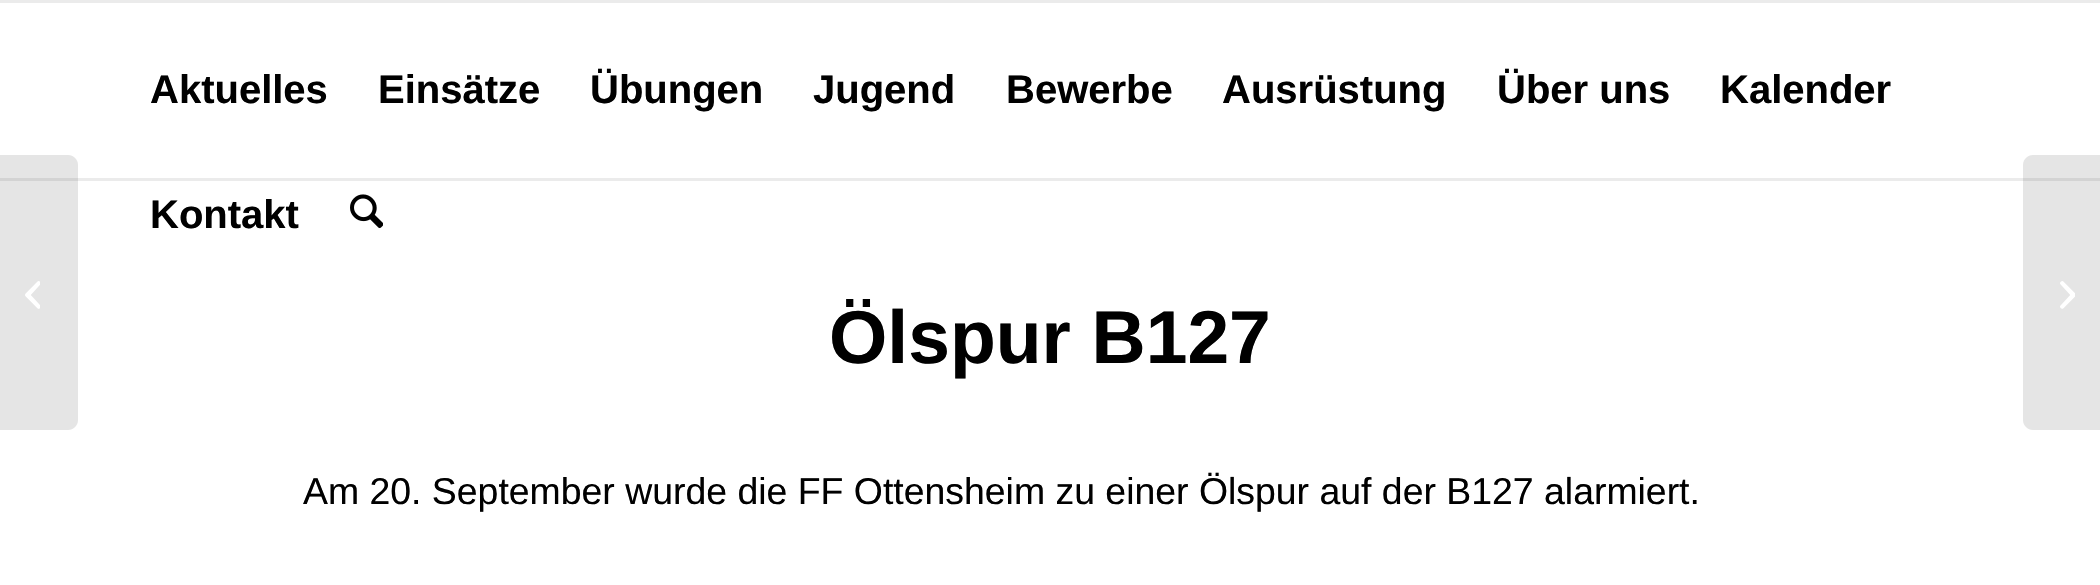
#include "include/core/SkBlurTypes.h"
#include "include/core/SkCanvas.h"
#include "include/core/SkData.h"
#include "include/core/SkFont.h"
#include "include/core/SkFontMgr.h"
#include "include/core/SkImage.h"
#include "include/core/SkMaskFilter.h"
#include "include/core/SkPaint.h"
#include "include/core/SkPathBuilder.h"
#include "include/core/SkTextBlob.h"
#include "include/effects/SkDashPathEffect.h"
#include "include/effects/SkGradientShader.h"
#include "include/utils/SkParsePath.h"

extern sk_sp<SkFontMgr> fontMgr;

static SkFont font(const char* family, int weight, float size, bool italic = false) {
    SkFontStyle style(weight, SkFontStyle::kNormal_Width,
        italic ? SkFontStyle::kItalic_Slant : SkFontStyle::kUpright_Slant);
    SkFont result(fontMgr->matchFamilyStyle(family, style), size);
    result.setSubpixel(true);
    return result;
}

static void drawLabel(SkCanvas* canvas, const char* s, float x, float y, const SkFont& font, SkColor color) {
    SkPaint ink(SkColor4f::FromColor(color));
    ink.setAntiAlias(true);
    canvas->drawString(s, x, y, font, ink);
}

static void fillRect(SkCanvas* canvas, float x, float y, float w, float h, SkColor color) {
    SkPaint ink(SkColor4f::FromColor(color));
    ink.setAntiAlias(true);
    canvas->drawRect(SkRect::MakeXYWH(x, y, w, h), ink);
}

static void drawPhoto(SkCanvas* canvas, const char* path, float x, float y, float w, float h) {
    auto image = SkImages::DeferredFromEncodedData(SkData::MakeFromFileName(path));
    canvas->drawImageRect(image, SkRect::MakeXYWH(x, y, w, h), SkSamplingOptions());
}

static SkPath parsePath(const char* data, bool evenOdd = false) {
    SkPath result = *SkParsePath::FromSVGString(data);
    if (evenOdd) result.setFillType(SkPathFillType::kEvenOdd);
    return result;
}

void draw(SkCanvas* canvas) {
    SkPaint paint;
    paint.setAntiAlias(true);
    canvas->clear(0xFFFFFFFF);
    fillRect(canvas, 0, 178, 2100, 3, 0xFFEBEBEB);
    paint.setColor(0x1A000000);
    canvas->drawPath(parsePath("M0 155H68C73.5 155 78 159.5 78 165V420C78 425.5 73.5 430 68 430H0Z"), paint);
    drawPhoto(canvas, "assets/img1.png", 25, 281, 15, 28);
    fillRect(canvas, 0, 0, 2100, 3, 0xFFEBEBEB);
    SkFont font1 = font("Liberation Sans", 700, 40);
    drawLabel(canvas, "Aktuelles", 150, 103, font1, 0xFF000000);
    drawLabel(canvas, "Einsätze", 378, 103, font1, 0xFF000000);
    drawLabel(canvas, "Übungen", 590, 103, font1, 0xFF000000);
    drawLabel(canvas, "Jugend", 813, 103, font1, 0xFF000000);
    drawLabel(canvas, "Bewerbe", 1006, 103, font1, 0xFF000000);
    drawLabel(canvas, "Ausrüstung", 1222, 103, font1, 0xFF000000);
    drawLabel(canvas, "Über uns", 1497, 103, font1, 0xFF000000);
    drawLabel(canvas, "Kalender", 1720, 103, font1, 0xFF000000);
    drawLabel(canvas, "Kontakt", 150, 228, font1, 0xFF000000);
    drawPhoto(canvas, "assets/img2.png", 350, 194, 33, 35);
    canvas->drawPath(parsePath("M2033 155H2100V430H2033C2027.5 430 2023 425.5 2023 420V165C2023 159.5 2027.5 155 2033 155Z"), paint);
    drawPhoto(canvas, "assets/img3.png", 2060, 281, 15, 28);
    SkFont font2 = font("Liberation Sans", 700, 75);
    drawLabel(canvas, "Ölspur B127", 829, 363, font2, 0xFF000000);
    SkFont font3 = font("Liberation Sans", 400, 37.4f);
    drawLabel(canvas, "Am 20. September wurde die FF Ottensheim zu einer Ölspur auf der B127 alarmiert.", 303, 504, font3, 0xFF000000);
}
